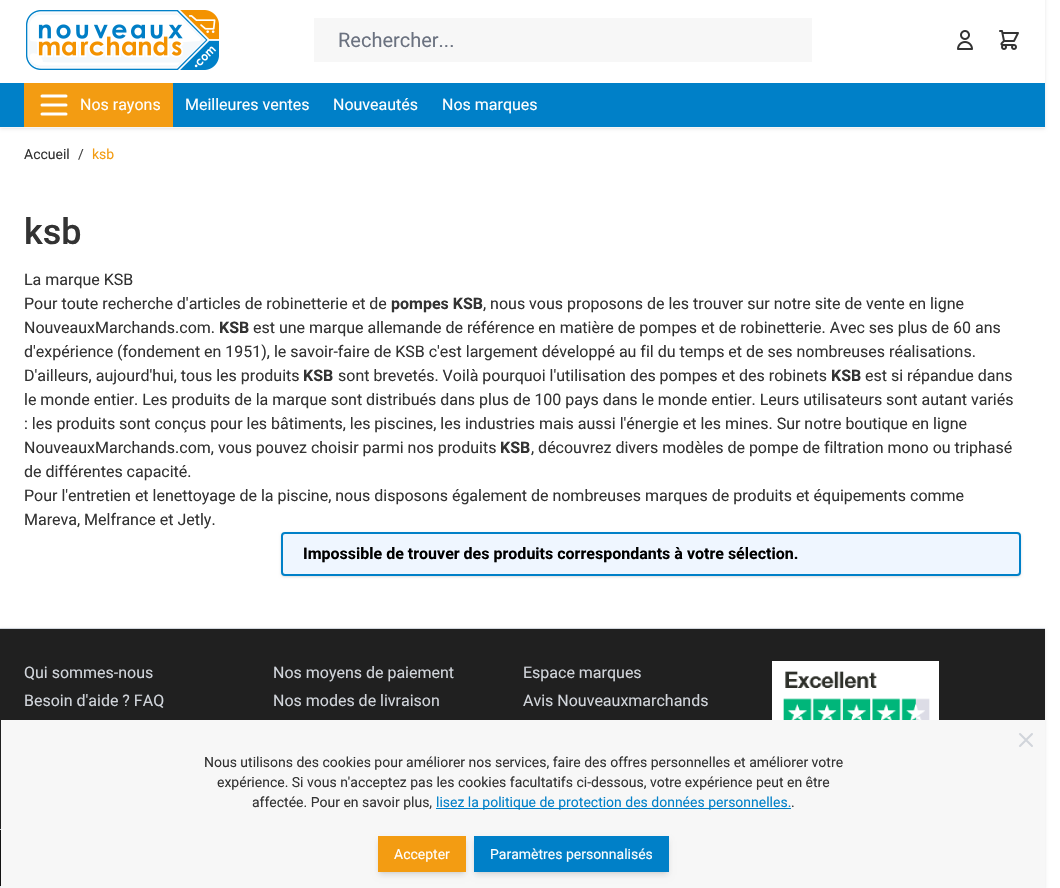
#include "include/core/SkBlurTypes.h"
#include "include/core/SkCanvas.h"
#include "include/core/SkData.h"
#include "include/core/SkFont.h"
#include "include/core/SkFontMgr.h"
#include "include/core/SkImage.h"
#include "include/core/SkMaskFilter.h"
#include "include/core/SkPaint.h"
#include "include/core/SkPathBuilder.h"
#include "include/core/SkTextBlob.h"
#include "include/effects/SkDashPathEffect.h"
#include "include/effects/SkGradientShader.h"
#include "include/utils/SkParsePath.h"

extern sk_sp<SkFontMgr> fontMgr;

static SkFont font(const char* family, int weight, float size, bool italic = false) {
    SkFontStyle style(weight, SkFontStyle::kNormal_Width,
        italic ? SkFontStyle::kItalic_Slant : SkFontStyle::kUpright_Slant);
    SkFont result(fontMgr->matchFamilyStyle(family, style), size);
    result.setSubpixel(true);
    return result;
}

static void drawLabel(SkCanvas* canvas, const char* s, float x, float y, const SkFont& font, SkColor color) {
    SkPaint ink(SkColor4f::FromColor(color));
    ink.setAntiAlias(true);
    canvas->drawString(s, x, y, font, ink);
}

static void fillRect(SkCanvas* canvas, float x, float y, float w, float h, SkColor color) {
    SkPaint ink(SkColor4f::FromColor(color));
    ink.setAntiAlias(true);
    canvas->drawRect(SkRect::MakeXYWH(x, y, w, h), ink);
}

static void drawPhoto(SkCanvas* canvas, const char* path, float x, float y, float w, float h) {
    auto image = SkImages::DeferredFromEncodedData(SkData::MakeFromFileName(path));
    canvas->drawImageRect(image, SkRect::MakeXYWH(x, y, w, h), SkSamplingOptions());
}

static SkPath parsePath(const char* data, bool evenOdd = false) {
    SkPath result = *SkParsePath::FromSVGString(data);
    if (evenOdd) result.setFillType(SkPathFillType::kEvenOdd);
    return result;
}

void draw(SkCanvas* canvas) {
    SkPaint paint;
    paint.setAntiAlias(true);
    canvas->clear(0xFFFFFFFF);
    canvas->save();
    canvas->clipPath(parsePath("M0 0H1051V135H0ZM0-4H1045V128H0Z", true), true);
    paint.setColor(0x1A000000);
    paint.setMaskFilter(SkMaskFilter::MakeBlur(kNormal_SkBlurStyle, 1.5f));
    canvas->drawRect(SkRect::MakeXYWH(0, -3, 1045, 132), paint);
    paint.setMaskFilter(nullptr);
    canvas->restore();
    fillRect(canvas, 0, 127, 1045, 1, 0xFFF5F5F5);
    drawPhoto(canvas, "assets/img1.png", 26, 10, 193, 60);
    fillRect(canvas, 314, 18, 498, 44, 0xFFF7F7F7);
    SkFont font1 = font("Roboto", 400, 20);
    drawLabel(canvas, "Rechercher...", 338, 47, font1, 0xFF6B7280);
    drawPhoto(canvas, "assets/img2.png", 957, 30, 16, 20);
    drawPhoto(canvas, "assets/img3.png", 999, 30, 20, 20);
    fillRect(canvas, 0, 83, 1045, 44, 0xFF0080C8);
    fillRect(canvas, 24, 83, 149, 44, 0xFFF39C12);
    paint.setStroke(true);
    paint.setStrokeWidth(3);
    paint.setStrokeCap(SkPaint::kRound_Cap);
    paint.setStrokeJoin(SkPaint::kRound_Join);
    paint.setColor(0xFFFFFFFF);
    canvas->drawPath(parsePath("M42 96H66M42 105H66M42 114H66"), paint);
    SkFont font2 = font("Roboto", 400, 16);
    drawLabel(canvas, "Nos rayons", 80, 110, font2, 0xFFFFFFFF);
    drawLabel(canvas, "Meilleures ventes", 185, 110, font2, 0xFFFFFFFF);
    drawLabel(canvas, "Nouveautés", 333, 110, font2, 0xFFFFFFFF);
    drawLabel(canvas, "Nos marques", 442, 110, font2, 0xFFFFFFFF);
    SkFont font3 = font("Roboto", 400, 14);
    drawLabel(canvas, "Accueil", 24, 159, font3, 0xFF333333);
    drawLabel(canvas, "/", 78, 159, font3, 0xFF434343);
    drawLabel(canvas, "ksb", 92, 159, font3, 0xFFF39C12);
    SkFont font4 = font("Roboto", 500, 36);
    drawLabel(canvas, "ksb", 24, 244, font4, 0xFF333333);
    drawLabel(canvas, "La marque KSB", 24, 285, font2, 0xFF333333);
    drawLabel(canvas, "Pour toute recherche d'articles de robinetterie et de", 24, 309, font2, 0xFF333333);
    SkFont font5 = font("Roboto", 700, 16);
    drawLabel(canvas, "pompes KSB", 391, 309, font5, 0xFF333333);
    drawLabel(canvas, ", nous vous proposons de les trouver sur notre site de vente en ligne", 483, 309, font2, 0xFF333333);
    drawLabel(canvas, "NouveauxMarchands.com.", 24, 333, font2, 0xFF333333);
    drawLabel(canvas, "KSB", 219, 333, font5, 0xFF333333);
    drawLabel(canvas, "est une marque allemande de référence en matière de pompes et de robinetterie. Avec ses plus de 60 ans", 253, 333, font2, 0xFF333333);
    drawLabel(canvas, "d'expérience (fondement en 1951), le savoir-faire de KSB c'est largement développé au fil du temps et de ses nombreuses réalisations.", 24, 357, font2, 0xFF333333);
    drawLabel(canvas, "D'ailleurs, aujourd'hui, tous les produits", 24, 381, font2, 0xFF333333);
    drawLabel(canvas, "KSB", 303, 381, font5, 0xFF333333);
    drawLabel(canvas, "sont brevetés. Voilà pourquoi l'utilisation des pompes et des robinets", 338, 381, font2, 0xFF333333);
    drawLabel(canvas, "KSB", 831, 381, font5, 0xFF333333);
    drawLabel(canvas, "est si répandue dans", 865, 381, font2, 0xFF333333);
    drawLabel(canvas, "le monde entier. Les produits de la marque sont distribués dans plus de 100 pays dans le monde entier. Leurs utilisateurs sont autant variés", 24, 405, font2, 0xFF333333);
    drawLabel(canvas, ": les produits sont conçus pour les bâtiments, les piscines, les industries mais aussi l'énergie et les mines. Sur notre boutique en ligne", 24, 429, font2, 0xFF333333);
    drawLabel(canvas, "NouveauxMarchands.com, vous pouvez choisir parmi nos produits", 24, 453, font2, 0xFF333333);
    drawLabel(canvas, "KSB", 500, 453, font5, 0xFF333333);
    drawLabel(canvas, ", découvrez divers modèles de pompe de filtration mono ou triphasé", 531, 453, font2, 0xFF333333);
    drawLabel(canvas, "de différentes capacité.", 24, 477, font2, 0xFF333333);
    drawLabel(canvas, "Pour l'entretien et lenettoyage de la piscine, nous disposons également de nombreuses marques de produits et équipements comme", 24, 501, font2, 0xFF333333);
    drawLabel(canvas, "Mareva, Melfrance et Jetly.", 24, 525, font2, 0xFF333333);
    paint.setStroke(false);
    paint.setColor(0x1A000000);
    paint.setMaskFilter(SkMaskFilter::MakeBlur(kNormal_SkBlurStyle, 1));
    canvas->drawRoundRect(SkRect::MakeXYWH(282, 534, 738, 42), 3, 3, paint);
    paint.setMaskFilter(nullptr);
    paint.setMaskFilter(SkMaskFilter::MakeBlur(kNormal_SkBlurStyle, 1.5f));
    canvas->drawRoundRect(SkRect::MakeXYWH(281, 533, 740, 44), 4, 4, paint);
    paint.setMaskFilter(nullptr);
    paint.setColor(0xFFEFF6FF);
    canvas->drawRoundRect(SkRect::MakeXYWH(282, 533, 738, 42), 3, 3, paint);
    paint.setStroke(true);
    paint.setStrokeWidth(2);
    paint.setStrokeCap(SkPaint::kButt_Cap);
    paint.setStrokeJoin(SkPaint::kMiter_Join);
    paint.setColor(0xFF0080C8);
    canvas->drawRoundRect(SkRect::MakeXYWH(282, 533, 738, 42), 3, 3, paint);
    drawLabel(canvas, "Impossible de trouver des produits correspondants à votre sélection.", 303, 559, font5, 0xFF000000);
    paint.setStroke(false);
    paint.setColor(0x1A000000);
    paint.setMaskFilter(SkMaskFilter::MakeBlur(kNormal_SkBlurStyle, 1.5f));
    canvas->drawRect(SkRect::MakeXYWH(0, 629, 1045, 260), paint);
    paint.setMaskFilter(nullptr);
    fillRect(canvas, 0, 629, 1045, 200, 0xFF202020);
    fillRect(canvas, 0, 628, 1045, 1, 0xFFD1D5DB);
    drawLabel(canvas, "Qui sommes-nous", 24, 678, font2, 0xFFD1D5DB);
    drawLabel(canvas, "Besoin d'aide ? FAQ", 24, 706, font2, 0xFFD1D5DB);
    drawLabel(canvas, "Nos moyens de paiement", 273, 678, font2, 0xFFD1D5DB);
    drawLabel(canvas, "Nos modes de livraison", 273, 706, font2, 0xFFD1D5DB);
    drawLabel(canvas, "Espace marques", 523, 678, font2, 0xFFD1D5DB);
    drawLabel(canvas, "Avis Nouveauxmarchands", 523, 706, font2, 0xFFD1D5DB);
    drawPhoto(canvas, "assets/img4.png", 772, 661, 167, 59);
    fillRect(canvas, 0, 830, 1, 56, 0xFF121212);
    fillRect(canvas, 0, 829, 1, 1, 0xFFD1D5DB);
    fillRect(canvas, 0, 886, 1, 2, 0xFFE5E7EB);
    fillRect(canvas, 1, 720, 1044, 168, 0xFFF7F7F7);
    paint.setStroke(true);
    paint.setStrokeCap(SkPaint::kRound_Cap);
    paint.setStrokeJoin(SkPaint::kRound_Join);
    paint.setColor(0xFFD1D5DB);
    canvas->drawPath(parsePath("M1020 746L1032 734M1020 734L1032 746"), paint);
    drawLabel(canvas, "Nous utilisons des cookies pour améliorer nos services, faire des offres personnelles et améliorer votre", 204, 767, font3, 0xFF333333);
    drawLabel(canvas, "expérience. Si vous n'acceptez pas les cookies facultatifs ci-dessous, votre expérience peut en être", 217, 787, font3, 0xFF333333);
    drawLabel(canvas, "affectée. Pour en savoir plus,", 252, 807, font3, 0xFF333333);
    fillRect(canvas, 436, 808, 355, 1, 0xFF0080C8);
    drawLabel(canvas, "lisez la politique de protection des données personnelles.", 436, 807, font3, 0xFF0080C8);
    drawLabel(canvas, ".", 791, 807, font3, 0xFF333333);
    paint.setStroke(false);
    paint.setColor(0x1A000000);
    paint.setMaskFilter(SkMaskFilter::MakeBlur(kNormal_SkBlurStyle, 2));
    canvas->drawRect(SkRect::MakeXYWH(380, 840, 84, 32), paint);
    paint.setMaskFilter(nullptr);
    paint.setMaskFilter(SkMaskFilter::MakeBlur(kNormal_SkBlurStyle, 3));
    canvas->drawRect(SkRect::MakeXYWH(379, 841, 86, 34), paint);
    paint.setMaskFilter(nullptr);
    fillRect(canvas, 378, 836, 88, 36, 0xFFF39C12);
    drawLabel(canvas, "Accepter", 394, 859, font3, 0xFFFFFFFF);
    paint.setMaskFilter(SkMaskFilter::MakeBlur(kNormal_SkBlurStyle, 2));
    canvas->drawRect(SkRect::MakeXYWH(476, 840, 191, 32), paint);
    paint.setMaskFilter(nullptr);
    paint.setMaskFilter(SkMaskFilter::MakeBlur(kNormal_SkBlurStyle, 3));
    canvas->drawRect(SkRect::MakeXYWH(475, 841, 193, 34), paint);
    paint.setMaskFilter(nullptr);
    fillRect(canvas, 474, 836, 195, 36, 0xFF0080C8);
    drawLabel(canvas, "Paramètres personnalisés", 490, 859, font3, 0xFFFFFFFF);
}
